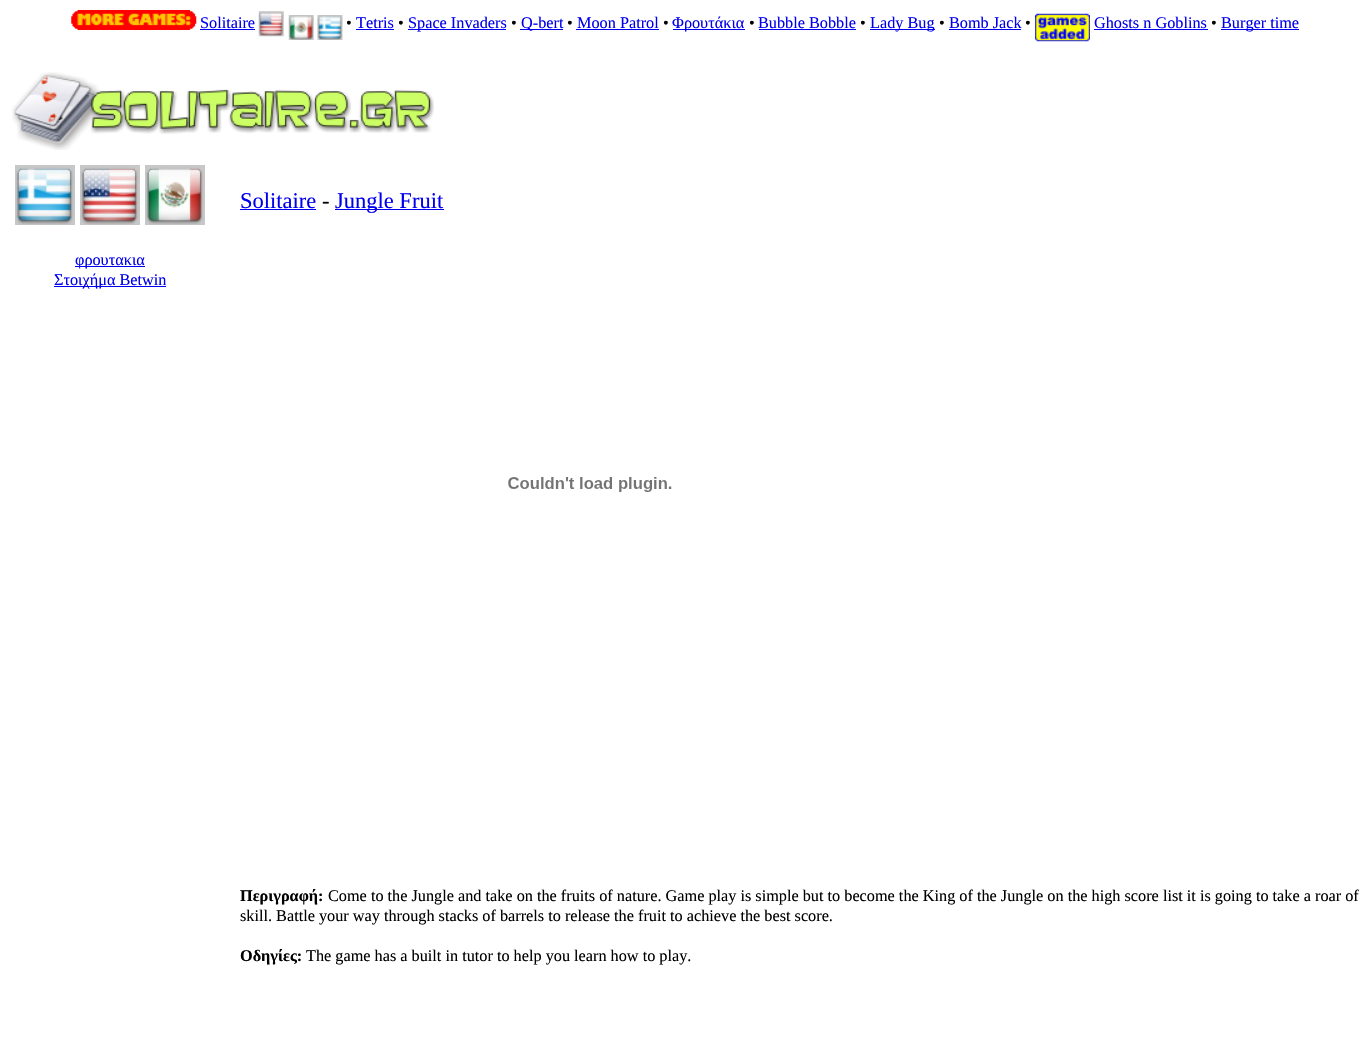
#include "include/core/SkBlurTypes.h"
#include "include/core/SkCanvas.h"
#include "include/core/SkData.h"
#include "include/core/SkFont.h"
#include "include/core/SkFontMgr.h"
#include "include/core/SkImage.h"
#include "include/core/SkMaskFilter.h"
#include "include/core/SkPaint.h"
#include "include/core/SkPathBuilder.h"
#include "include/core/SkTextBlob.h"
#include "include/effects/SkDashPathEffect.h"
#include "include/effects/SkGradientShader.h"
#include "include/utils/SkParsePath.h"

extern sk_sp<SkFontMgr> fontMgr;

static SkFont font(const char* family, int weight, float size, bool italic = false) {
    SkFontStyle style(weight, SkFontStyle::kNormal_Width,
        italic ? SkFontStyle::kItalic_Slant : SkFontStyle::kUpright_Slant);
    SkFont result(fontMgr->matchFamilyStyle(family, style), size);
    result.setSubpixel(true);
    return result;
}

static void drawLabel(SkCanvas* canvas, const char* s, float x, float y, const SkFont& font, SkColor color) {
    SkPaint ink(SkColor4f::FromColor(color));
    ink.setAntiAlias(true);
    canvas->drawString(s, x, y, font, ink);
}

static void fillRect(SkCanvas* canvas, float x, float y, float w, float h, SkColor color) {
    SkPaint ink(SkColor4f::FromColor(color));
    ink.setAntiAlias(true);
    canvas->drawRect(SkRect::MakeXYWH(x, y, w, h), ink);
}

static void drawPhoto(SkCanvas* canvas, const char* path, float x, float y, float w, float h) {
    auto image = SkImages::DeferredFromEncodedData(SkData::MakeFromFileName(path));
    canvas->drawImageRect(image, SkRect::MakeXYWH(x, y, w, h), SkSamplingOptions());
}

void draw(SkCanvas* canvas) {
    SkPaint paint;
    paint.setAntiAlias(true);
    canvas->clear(0xFFFFFFFF);
    drawPhoto(canvas, "assets/img1.png", 71, 10, 126, 20);
    SkFont font1 = font("Liberation Serif", 400, 16.25f);
    drawLabel(canvas, "Solitaire", 200, 28, font1, 0xFF0000EE);
    fillRect(canvas, 200, 29, 55, 1, 0xFF0000EE);
    drawPhoto(canvas, "assets/img2.png", 258, 11, 26, 26);
    drawPhoto(canvas, "assets/img3.png", 288, 15, 26, 25);
    drawPhoto(canvas, "assets/img4.png", 317, 15, 26, 25);
    drawLabel(canvas, "•", 346, 28, font1, 0xFF000000);
    drawLabel(canvas, "Tetris", 356, 28, font1, 0xFF0000EE);
    fillRect(canvas, 356, 29, 38, 1, 0xFF0000EE);
    drawLabel(canvas, "•", 398, 28, font1, 0xFF000000);
    fillRect(canvas, 408, 29, 98, 1, 0xFF0000EE);
    drawLabel(canvas, "Space Invaders", 408, 28, font1, 0xFF0000EE);
    drawLabel(canvas, "•", 511, 28, font1, 0xFF000000);
    fillRect(canvas, 520, 29, 43, 1, 0xFF0000EE);
    drawLabel(canvas, "Q-bert", 521, 28, font1, 0xFF0000EE);
    drawLabel(canvas, "•", 567, 28, font1, 0xFF000000);
    drawLabel(canvas, "Moon Patrol", 577, 28, font1, 0xFF0000EE);
    fillRect(canvas, 576, 29, 83, 1, 0xFF0000EE);
    drawLabel(canvas, "•", 663, 28, font1, 0xFF000000);
    fillRect(canvas, 673, 29, 72, 1, 0xFF0000EE);
    drawLabel(canvas, "Φρουτάκια", 672, 28, font1, 0xFF0000EE);
    drawLabel(canvas, "•", 749, 28, font1, 0xFF000000);
    drawLabel(canvas, "Bubble Bobble", 758, 28, font1, 0xFF0000EE);
    fillRect(canvas, 759, 29, 97, 1, 0xFF0000EE);
    drawLabel(canvas, "•", 860, 28, font1, 0xFF000000);
    fillRect(canvas, 870, 29, 65, 1, 0xFF0000EE);
    drawLabel(canvas, "Lady Bug", 870, 28, font1, 0xFF0000EE);
    drawLabel(canvas, "•", 939, 28, font1, 0xFF000000);
    drawLabel(canvas, "Bomb Jack", 949, 28, font1, 0xFF0000EE);
    fillRect(canvas, 949, 29, 72, 1, 0xFF0000EE);
    drawLabel(canvas, "•", 1025, 28, font1, 0xFF000000);
    drawPhoto(canvas, "assets/img5.png", 1035, 13, 55, 29);
    drawLabel(canvas, "Ghosts n Goblins", 1094, 28, font1, 0xFF0000EE);
    fillRect(canvas, 1094, 29, 114, 1, 0xFF0000EE);
    drawLabel(canvas, "•", 1211, 28, font1, 0xFF000000);
    fillRect(canvas, 1221, 29, 78, 1, 0xFF0000EE);
    drawLabel(canvas, "Burger time", 1221, 28, font1, 0xFF0000EE);
    drawPhoto(canvas, "assets/img6.png", 12, 72, 422, 78);
    drawPhoto(canvas, "assets/img7.png", 15, 165, 60, 60);
    drawPhoto(canvas, "assets/img8.png", 80, 165, 60, 60);
    drawPhoto(canvas, "assets/img9.png", 145, 165, 60, 60);
    fillRect(canvas, 75, 266, 70, 1, 0xFF0000EE);
    drawLabel(canvas, "φρουτακια", 75, 265, font1, 0xFF0000EE);
    fillRect(canvas, 54, 286, 112, 1, 0xFF0000EE);
    drawLabel(canvas, "Στοιχήμα Betwin", 54, 285, font1, 0xFF0000EE);
    SkFont font2 = font("Liberation Serif", 400, 22.5f);
    drawLabel(canvas, "Solitaire", 240, 208, font2, 0xFF0000EE);
    fillRect(canvas, 240, 209, 76, 1, 0xFF0000EE);
    drawLabel(canvas, "-", 322, 208, font2, 0xFF000000);
    fillRect(canvas, 335, 209, 109, 1, 0xFF0000EE);
    drawLabel(canvas, "Jungle Fruit", 335, 208, font2, 0xFF0000EE);
    drawPhoto(canvas, "assets/img10.png", 508, 477, 164, 15);
    SkFont font3 = font("Liberation Serif", 700, 16.25f);
    drawLabel(canvas, "Περιγραφή:", 240, 901, font3, 0xFF000000);
    drawLabel(canvas, "Come to the Jungle and take on the fruits of nature. Game play is simple but to become the King of the Jungle on the high score list it is going to take a roar of", 328, 901, font1, 0xFF000000);
    drawLabel(canvas, "skill. Battle your way through stacks of barrels to release the fruit to achieve the best score.", 240, 921, font1, 0xFF000000);
    drawLabel(canvas, "Οδηγίες:", 240, 961, font3, 0xFF000000);
    drawLabel(canvas, "The game has a built in tutor to help you learn how to play.", 306, 961, font1, 0xFF000000);
}
